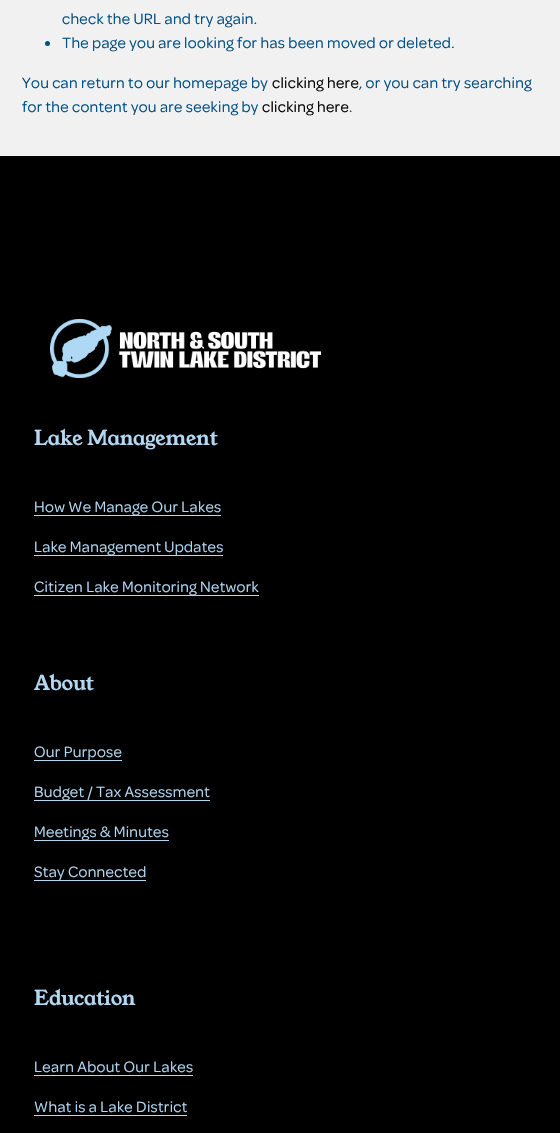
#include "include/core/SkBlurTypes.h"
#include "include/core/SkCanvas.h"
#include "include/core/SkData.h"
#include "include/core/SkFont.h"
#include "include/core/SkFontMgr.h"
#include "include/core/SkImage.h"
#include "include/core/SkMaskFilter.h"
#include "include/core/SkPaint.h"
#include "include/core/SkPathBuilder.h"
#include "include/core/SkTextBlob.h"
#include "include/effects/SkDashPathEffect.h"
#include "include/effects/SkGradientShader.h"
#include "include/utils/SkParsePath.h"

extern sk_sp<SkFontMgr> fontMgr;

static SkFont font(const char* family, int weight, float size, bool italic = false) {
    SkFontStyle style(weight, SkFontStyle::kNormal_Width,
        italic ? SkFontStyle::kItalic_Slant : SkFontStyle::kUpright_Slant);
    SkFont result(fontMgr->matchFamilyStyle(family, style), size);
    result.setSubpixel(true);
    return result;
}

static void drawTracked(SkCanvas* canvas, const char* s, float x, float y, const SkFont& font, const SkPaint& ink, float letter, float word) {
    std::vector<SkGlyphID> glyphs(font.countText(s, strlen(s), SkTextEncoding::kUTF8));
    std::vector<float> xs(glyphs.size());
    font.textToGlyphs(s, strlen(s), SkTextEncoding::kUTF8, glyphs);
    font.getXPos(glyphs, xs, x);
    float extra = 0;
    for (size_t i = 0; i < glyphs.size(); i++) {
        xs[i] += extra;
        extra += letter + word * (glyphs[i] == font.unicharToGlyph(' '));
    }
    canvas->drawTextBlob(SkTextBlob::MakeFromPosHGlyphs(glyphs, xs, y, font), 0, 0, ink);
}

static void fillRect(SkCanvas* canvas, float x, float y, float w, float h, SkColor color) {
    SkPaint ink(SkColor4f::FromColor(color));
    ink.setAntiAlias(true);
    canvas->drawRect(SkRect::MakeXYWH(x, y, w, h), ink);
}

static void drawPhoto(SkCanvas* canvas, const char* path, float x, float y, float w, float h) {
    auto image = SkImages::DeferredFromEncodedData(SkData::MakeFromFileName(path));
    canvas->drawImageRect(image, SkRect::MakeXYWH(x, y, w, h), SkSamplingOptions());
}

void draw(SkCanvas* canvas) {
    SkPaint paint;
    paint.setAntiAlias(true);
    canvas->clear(0xFFF1F1F1);
    SkFont font1 = font("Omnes", 400, 16);
    paint.setColor(0xFF034E82);
    drawTracked(canvas, "check the URL and try again.", 62, 24, font1, paint, 0.32f, 0);
    canvas->drawCircle(47.5f, 43.5f, 2.5f, paint);
    drawTracked(canvas, "The page you are looking for has been moved or deleted.", 62, 48, font1, paint, 0.32f, 0);
    drawTracked(canvas, "You can return to our homepage by", 22, 88, font1, paint, 0.32f, 0);
    paint.setColor(0xFF000000);
    drawTracked(canvas, "clicking here", 272, 88, font1, paint, 0.32f, 0);
    paint.setColor(0xFF034E82);
    drawTracked(canvas, ", or you can try searching", 359, 88, font1, paint, 0.32f, 0);
    drawTracked(canvas, "for the content you are seeking by", 22, 112, font1, paint, 0.32f, 0);
    paint.setColor(0xFF000000);
    drawTracked(canvas, "clicking here", 262, 112, font1, paint, 0.32f, 0);
    paint.setColor(0xFF034E82);
    drawTracked(canvas, ".", 349, 112, font1, paint, 0.32f, 0);
    fillRect(canvas, 0, 156, 560, 977, 0xFF000000);
    drawPhoto(canvas, "assets/img1.png", 50, 319, 271, 59);
    SkFont font2 = font("Young Serif", 400, 20.25f);
    paint.setColor(0xFFB2D8F3);
    drawTracked(canvas, "Lake Management", 34, 445, font2, paint, -0.4f, 0);
    fillRect(canvas, 34, 515, 187, 1, 0xFFB2D8F3);
    drawTracked(canvas, "How We Manage Our Lakes", 34, 512, font1, paint, 0.32f, 0);
    fillRect(canvas, 34, 555, 189, 1, 0xFFB2D8F3);
    drawTracked(canvas, "Lake Management Updates", 34, 552, font1, paint, 0.32f, 0);
    fillRect(canvas, 34, 595, 225, 1, 0xFFB2D8F3);
    drawTracked(canvas, "Citizen Lake Monitoring Network", 34, 592, font1, paint, 0.32f, 0);
    drawTracked(canvas, "About", 34, 690, font2, paint, -0.4f, 0);
    fillRect(canvas, 34, 760, 88, 1, 0xFFB2D8F3);
    drawTracked(canvas, "Our Purpose", 34, 757, font1, paint, 0.32f, 0);
    fillRect(canvas, 34, 800, 176, 1, 0xFFB2D8F3);
    drawTracked(canvas, "Budget / Tax Assessment", 34, 797, font1, paint, 0.32f, 0);
    fillRect(canvas, 34, 840, 135, 1, 0xFFB2D8F3);
    drawTracked(canvas, "Meetings & Minutes", 34, 837, font1, paint, 0.32f, 0);
    fillRect(canvas, 34, 880, 112, 1, 0xFFB2D8F3);
    drawTracked(canvas, "Stay Connected", 34, 877, font1, paint, 0.32f, 0);
    drawTracked(canvas, "Education", 34, 1005, font2, paint, -0.4f, 0);
    drawTracked(canvas, "Learn About Our Lakes", 34, 1072, font1, paint, 0.32f, 0);
    fillRect(canvas, 34, 1075, 159, 1, 0xFFB2D8F3);
    drawTracked(canvas, "What is a Lake District", 34, 1112, font1, paint, 0.32f, 0);
    fillRect(canvas, 34, 1115, 153, 1, 0xFFB2D8F3);
}
